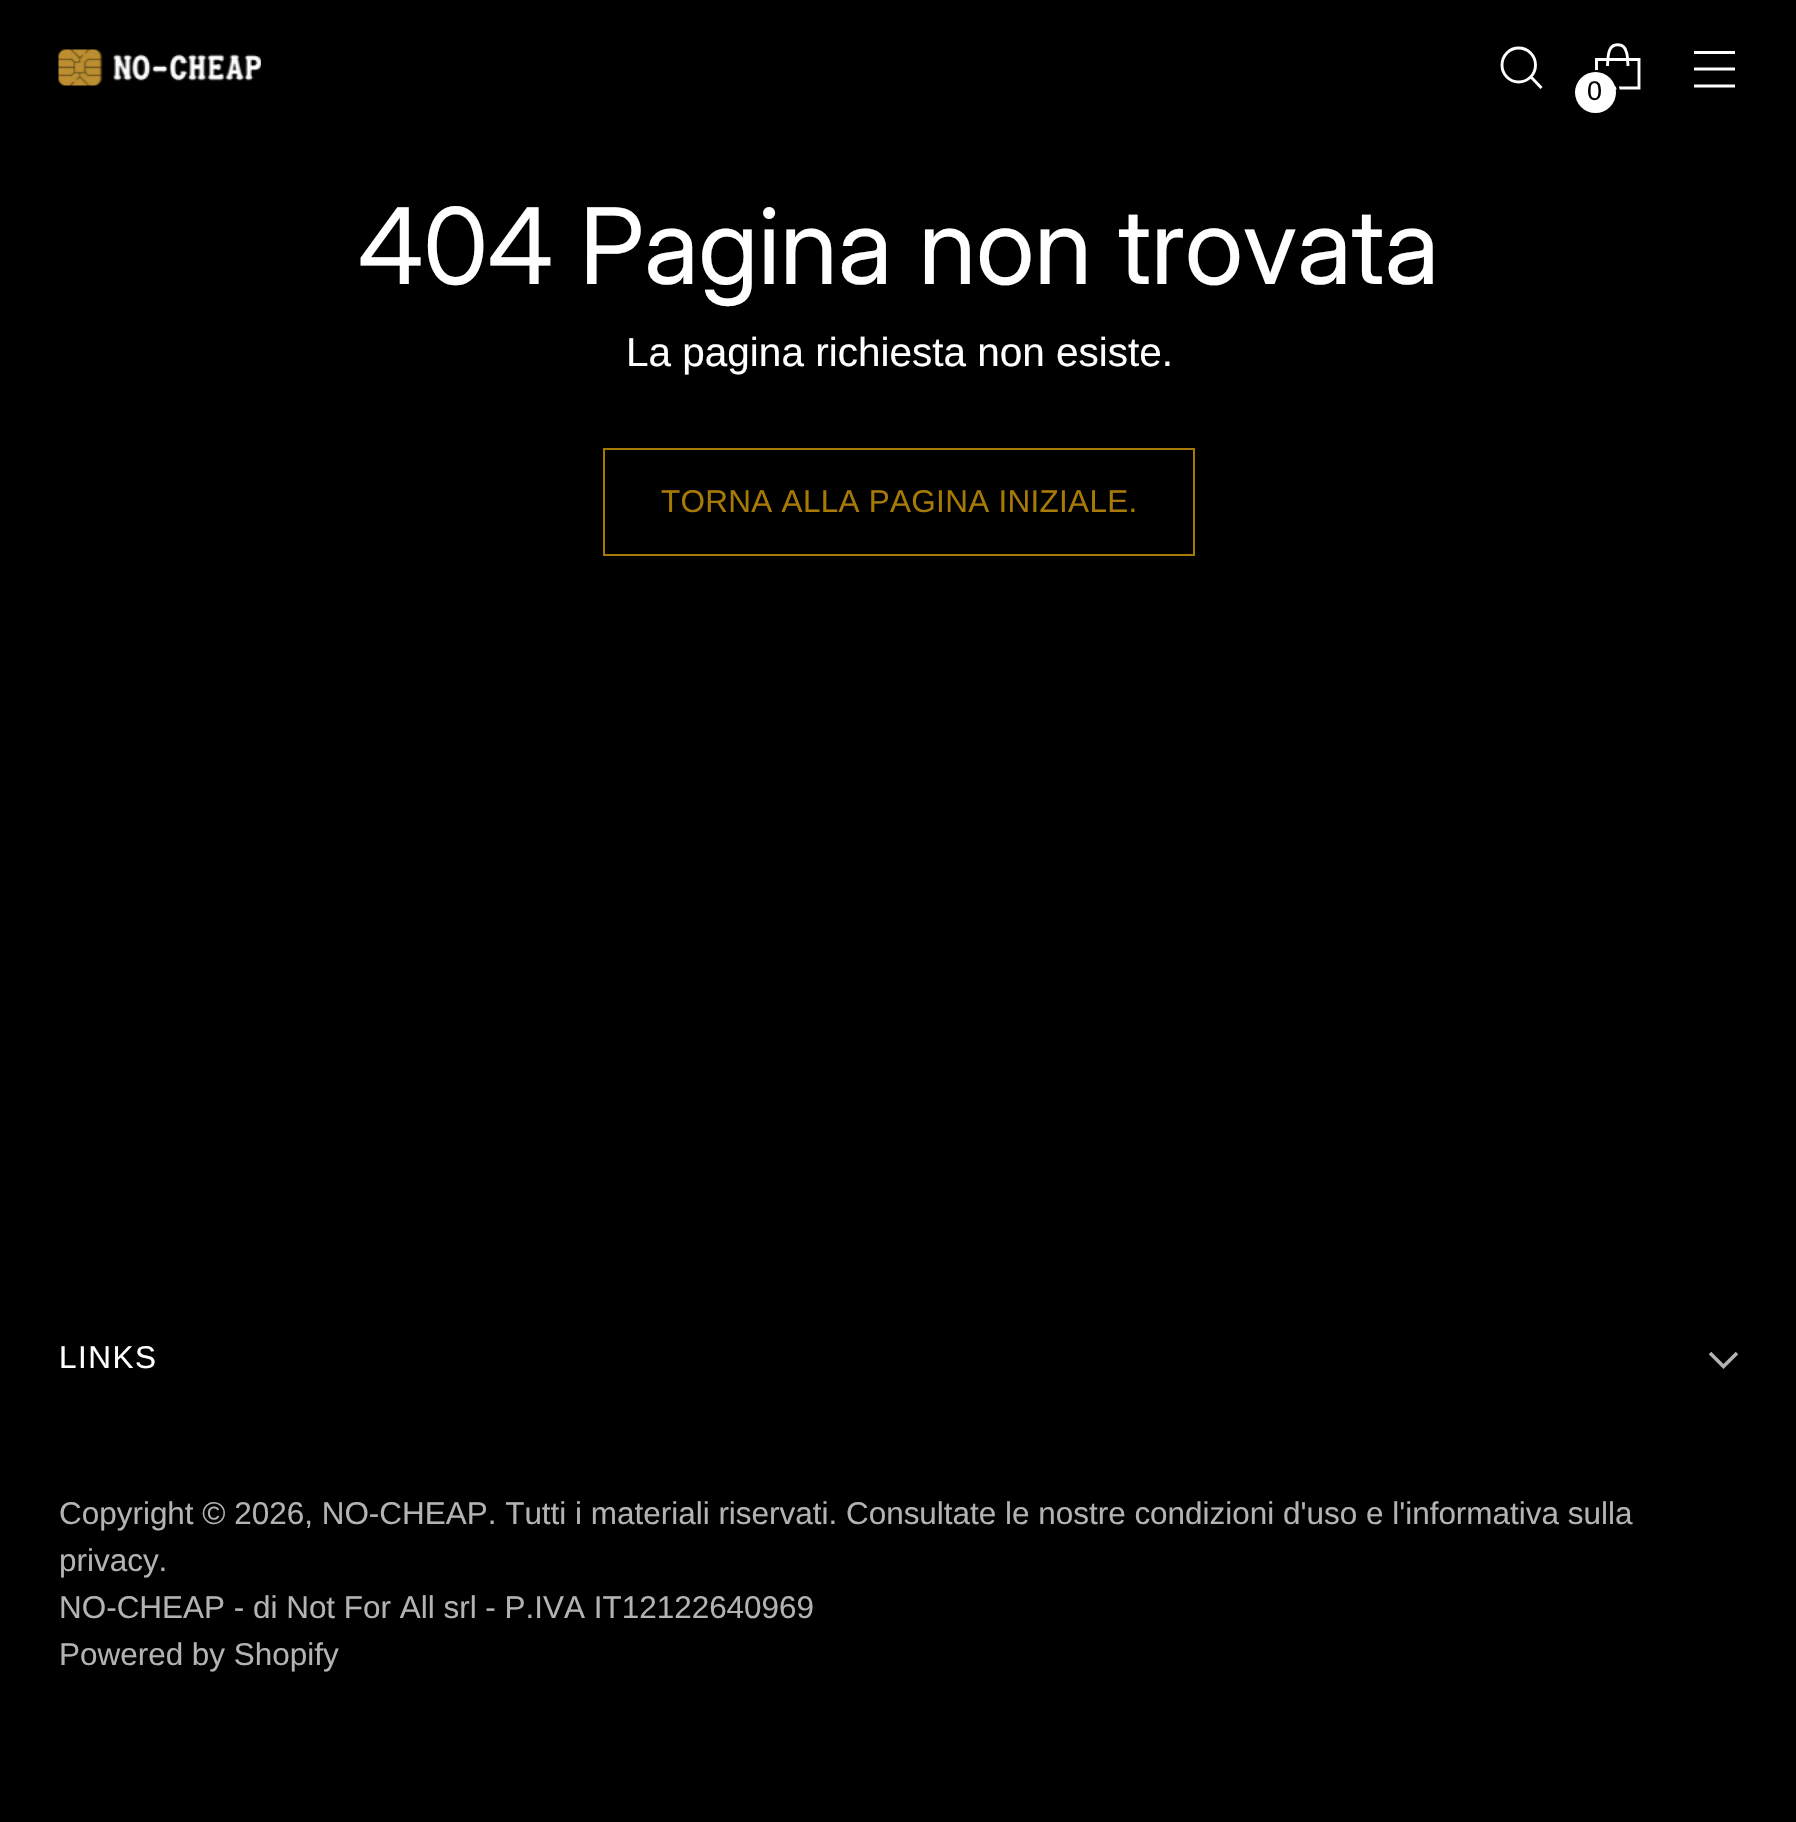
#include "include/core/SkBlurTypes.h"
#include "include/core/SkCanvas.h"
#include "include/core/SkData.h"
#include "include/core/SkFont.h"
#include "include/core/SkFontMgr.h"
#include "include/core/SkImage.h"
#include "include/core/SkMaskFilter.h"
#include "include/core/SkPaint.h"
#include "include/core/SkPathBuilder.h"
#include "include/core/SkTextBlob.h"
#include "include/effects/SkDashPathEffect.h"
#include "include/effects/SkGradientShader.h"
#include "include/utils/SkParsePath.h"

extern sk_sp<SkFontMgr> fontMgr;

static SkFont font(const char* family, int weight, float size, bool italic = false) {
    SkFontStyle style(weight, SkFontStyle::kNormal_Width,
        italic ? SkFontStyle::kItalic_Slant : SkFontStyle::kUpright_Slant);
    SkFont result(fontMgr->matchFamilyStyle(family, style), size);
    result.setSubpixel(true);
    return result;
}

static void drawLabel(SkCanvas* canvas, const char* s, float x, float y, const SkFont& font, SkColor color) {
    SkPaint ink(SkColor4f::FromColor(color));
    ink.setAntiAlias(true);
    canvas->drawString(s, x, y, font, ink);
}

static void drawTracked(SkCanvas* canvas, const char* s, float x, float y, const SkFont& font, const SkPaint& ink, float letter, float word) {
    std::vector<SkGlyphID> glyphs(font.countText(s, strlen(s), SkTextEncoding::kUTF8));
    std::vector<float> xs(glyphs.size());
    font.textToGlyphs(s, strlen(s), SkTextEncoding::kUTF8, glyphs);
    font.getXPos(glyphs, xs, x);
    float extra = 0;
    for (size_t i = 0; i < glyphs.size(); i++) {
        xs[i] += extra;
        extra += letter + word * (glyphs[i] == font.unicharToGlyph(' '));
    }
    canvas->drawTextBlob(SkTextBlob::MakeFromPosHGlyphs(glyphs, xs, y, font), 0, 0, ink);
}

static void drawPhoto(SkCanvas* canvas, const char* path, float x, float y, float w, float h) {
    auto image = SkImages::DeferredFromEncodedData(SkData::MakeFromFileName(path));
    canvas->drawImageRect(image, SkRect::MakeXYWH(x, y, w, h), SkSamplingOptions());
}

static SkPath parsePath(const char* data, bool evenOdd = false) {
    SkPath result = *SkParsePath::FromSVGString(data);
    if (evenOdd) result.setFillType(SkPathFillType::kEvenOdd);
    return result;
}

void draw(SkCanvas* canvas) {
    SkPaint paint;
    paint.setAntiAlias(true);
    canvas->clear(0xFF000000);
    drawPhoto(canvas, "assets/img1.png", 58, 49, 203, 37);
    paint.setStroke(true);
    paint.setStrokeWidth(2.9f);
    paint.setStrokeCap(SkPaint::kRound_Cap);
    paint.setColor(0xFFFFFFFF);
    canvas->drawPath(parsePath("M1518.5 82C1528 82 1535.5 74.5 1535.5 65C1535.5 55.5 1528 48 1518.5 48C1509.5 48 1502 55.5 1502 65C1502 74.5 1509.5 82 1518.5 82Z"), paint);
    paint.setStrokeCap(SkPaint::kButt_Cap);
    canvas->drawPath(parsePath("M1531 77L1541.5 88"), paint);
    canvas->drawPath(parsePath("M1694 69H1735M1694 52.5H1735M1694 86H1735"), paint);
    paint.setStrokeJoin(SkPaint::kBevel_Join);
    canvas->drawPath(parsePath("M1628 66C1627.5 61 1628 55.5 1626 51C1625 48 1623 45.5 1620 45C1607 42.5 1608 58.5 1607.5 66"), paint);
    paint.setStrokeJoin(SkPaint::kMiter_Join);
    canvas->drawPath(parsePath("M1639 88V59.5H1596.5V88Z"), paint);
    paint.setStrokeWidth(3);
    paint.setColor(0xFF000000);
    canvas->drawCircle(1596.5f, 93.5f, 22, paint);
    paint.setStroke(false);
    paint.setColor(0xFFFFFFFF);
    canvas->drawCircle(1595.5f, 92.5f, 20.5f, paint);
    SkFont font1 = font("Liberation Sans", 400, 27);
    drawLabel(canvas, "0", 1587, 100, font1, 0xFF000000);
    SkFont font2 = font("Inter", 400, 105.5f);
    drawLabel(canvas, "404 Pagina non trovata", 358, 284, font2, 0xFFFFFFFF);
    SkFont font3 = font("Liberation Sans", 400, 40.5f);
    drawLabel(canvas, "La pagina richiesta non esiste.", 626, 366, font3, 0xFFFFFFFF);
    paint.setStroke(true);
    paint.setStrokeWidth(2);
    paint.setColor(0xFFA77A06);
    canvas->drawRect(SkRect::MakeXYWH(604, 449, 590, 106), paint);
    SkFont font4 = font("Liberation Sans", 400, 31.45f);
    paint.setStroke(false);
    drawTracked(canvas, "TORNA ALLA PAGINA INIZIALE.", 661, 512, font4, paint, 0.3f, 0);
    paint.setColor(0xFFFFFFFF);
    drawTracked(canvas, "LINKS", 59, 1368, font4, paint, 1.5f, 0);
    paint.setStroke(true);
    paint.setStrokeWidth(3.6f);
    paint.setColor(0xFFB3B3B3);
    canvas->drawPath(parsePath("M1710 1353L1723.5 1366.5L1737 1353"), paint);
    drawLabel(canvas, "Copyright © 2026, NO-CHEAP. Tutti i materiali riservati. Consultate le nostre condizioni d'uso e l'informativa sulla", 59, 1524, font4, 0xFFB3B3B3);
    drawLabel(canvas, "privacy.", 59, 1571, font4, 0xFFB3B3B3);
    drawLabel(canvas, "NO-CHEAP - di Not For All srl - P.IVA IT12122640969", 59, 1618, font4, 0xFFB3B3B3);
    drawLabel(canvas, "Powered by Shopify", 59, 1665, font4, 0xFFB3B3B3);
}
